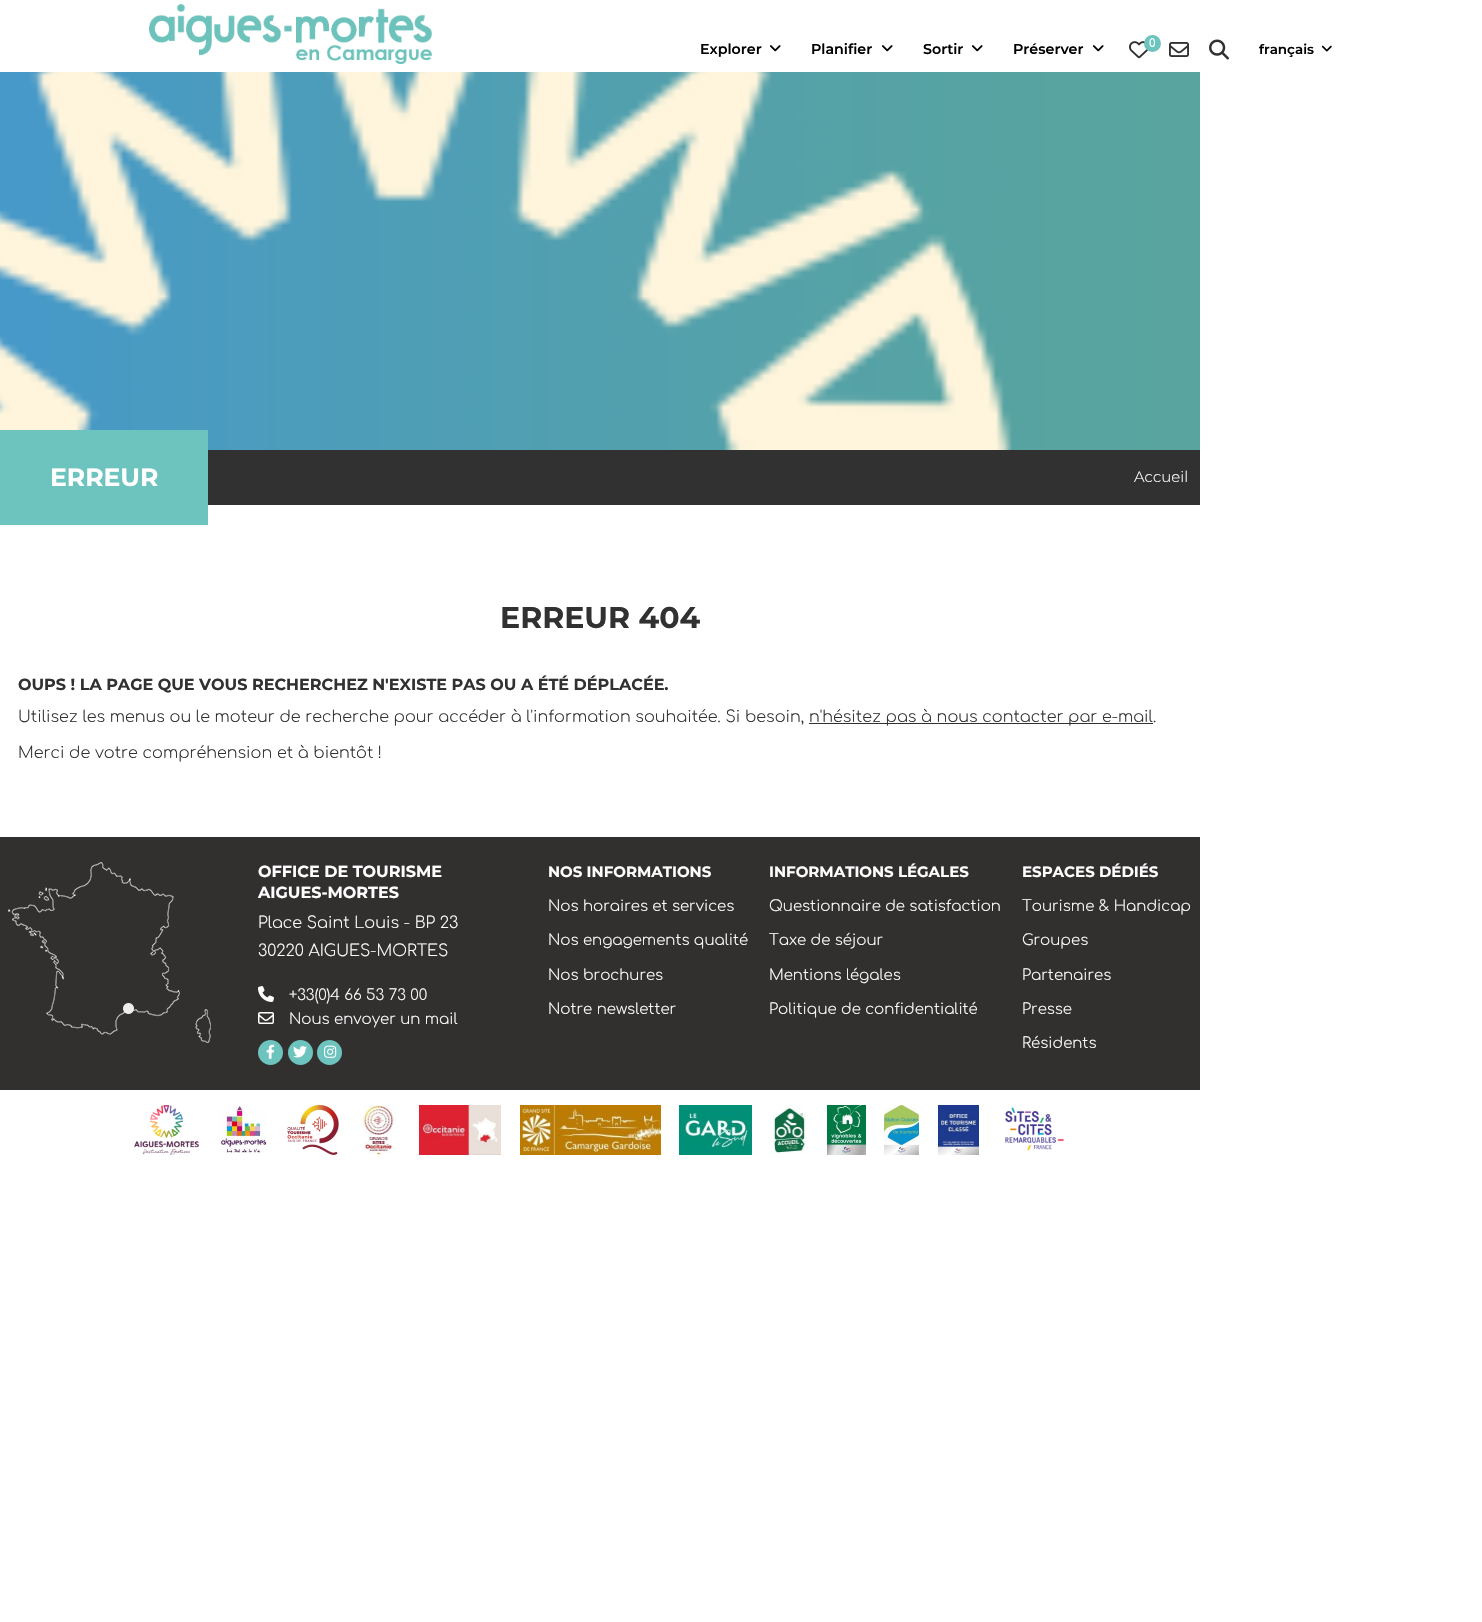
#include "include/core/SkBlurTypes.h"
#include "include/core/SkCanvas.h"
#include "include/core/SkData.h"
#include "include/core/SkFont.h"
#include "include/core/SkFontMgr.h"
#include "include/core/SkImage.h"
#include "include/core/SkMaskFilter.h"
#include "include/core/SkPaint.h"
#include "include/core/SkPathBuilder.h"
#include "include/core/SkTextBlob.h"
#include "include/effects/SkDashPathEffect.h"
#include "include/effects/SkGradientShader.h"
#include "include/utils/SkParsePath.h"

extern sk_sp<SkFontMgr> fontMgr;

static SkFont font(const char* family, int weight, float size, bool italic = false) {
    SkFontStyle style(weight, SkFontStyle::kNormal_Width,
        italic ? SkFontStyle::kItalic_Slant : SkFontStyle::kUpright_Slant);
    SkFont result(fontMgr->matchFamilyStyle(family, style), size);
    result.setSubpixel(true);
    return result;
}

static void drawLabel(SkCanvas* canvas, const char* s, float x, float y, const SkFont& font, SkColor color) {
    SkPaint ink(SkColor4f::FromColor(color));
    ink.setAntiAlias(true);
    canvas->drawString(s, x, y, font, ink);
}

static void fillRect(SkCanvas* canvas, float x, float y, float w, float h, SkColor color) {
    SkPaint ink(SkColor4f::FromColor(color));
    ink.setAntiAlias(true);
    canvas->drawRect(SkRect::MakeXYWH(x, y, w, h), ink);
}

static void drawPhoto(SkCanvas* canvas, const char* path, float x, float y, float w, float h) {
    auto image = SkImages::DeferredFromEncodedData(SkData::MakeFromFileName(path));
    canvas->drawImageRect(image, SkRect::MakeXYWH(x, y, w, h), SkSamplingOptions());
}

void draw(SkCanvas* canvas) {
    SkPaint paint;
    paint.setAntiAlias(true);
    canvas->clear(0xFFFFFFFF);
    drawPhoto(canvas, "assets/img1.png", 149, 4, 283, 60);
    SkFont font1 = font("Montserrat", 600, 14.25f);
    drawLabel(canvas, "Explorer", 700, 54, font1, 0xFF000000);
    drawPhoto(canvas, "assets/img2.png", 770, 45, 11, 7);
    drawLabel(canvas, "Planifier", 811, 54, font1, 0xFF000000);
    drawPhoto(canvas, "assets/img2.png", 882, 45, 11, 7);
    drawLabel(canvas, "Sortir", 923, 54, font1, 0xFF000000);
    drawPhoto(canvas, "assets/img2.png", 972, 45, 11, 7);
    drawLabel(canvas, "Préserver", 1013, 54, font1, 0xFF000000);
    drawPhoto(canvas, "assets/img2.png", 1093, 45, 11, 7);
    drawPhoto(canvas, "assets/img3.png", 1129, 41, 19, 18);
    paint.setColor(0xFF6DC3BD);
    canvas->drawCircle(1152.5f, 43.5f, 8.5f, paint);
    SkFont font2 = font("Comfortaa", 700, 11);
    drawLabel(canvas, "0", 1149, 47, font2, 0xFFFFFFFF);
    drawPhoto(canvas, "assets/img4.png", 1169, 42, 20, 15);
    drawPhoto(canvas, "assets/img5.png", 1209, 39, 20, 21);
    SkFont font3 = font("Montserrat", 600, 13.5f);
    drawLabel(canvas, "français", 1259, 54, font3, 0xFF000000);
    drawPhoto(canvas, "assets/img6.png", 1321, 45, 11, 7);
    drawPhoto(canvas, "assets/img7.png", 0, 72, 1200, 378);
    fillRect(canvas, 0, 430, 208, 95, 0xFF6DC3BD);
    SkFont font4 = font("Montserrat", 700, 25);
    drawLabel(canvas, "ERREUR", 50, 486, font4, 0xFFFFFFFF);
    fillRect(canvas, 208, 450, 992, 55, 0xFF313131);
    SkFont font5 = font("Montserrat", 300, 15);
    drawLabel(canvas, "Accueil", 1134, 482, font5, 0xFFFFFFFF);
    SkFont font6 = font("Montserrat", 700, 30);
    drawLabel(canvas, "ERREUR 404", 500, 628, font6, 0xFF313131);
    SkFont font7 = font("Montserrat", 700, 16);
    drawLabel(canvas, "OUPS ! LA PAGE QUE VOUS RECHERCHEZ N'EXISTE PAS OU A ÉTÉ DÉPLACÉE.", 18, 690, font7, 0xFF313131);
    SkFont font8 = font("Comfortaa", 300, 16);
    drawLabel(canvas, "Utilisez les menus ou le moteur de recherche pour accéder à l'information souhaitée. Si besoin,", 18, 722, font8, 0xFF313131);
    fillRect(canvas, 809, 723, 344, 1, 0xFF313131);
    drawLabel(canvas, "n'hésitez pas à nous contacter par e-mail.", 809, 722, font8, 0xFF313131);
    drawLabel(canvas, "Merci de votre compréhension et à bientôt !", 18, 758, font8, 0xFF313131);
    fillRect(canvas, 0, 837, 1200, 253, 0xFF322F2F);
    drawPhoto(canvas, "assets/img8.png", 8, 862, 203, 181);
    drawLabel(canvas, "OFFICE DE TOURISME", 258, 877, font7, 0xFFFFFFFF);
    drawLabel(canvas, "AIGUES-MORTES", 258, 898, font7, 0xFFFFFFFF);
    drawLabel(canvas, "Place Saint Louis - BP 23", 258, 928, font8, 0xFFFFFFFF);
    drawLabel(canvas, "30220 AIGUES-MORTES", 258, 956, font8, 0xFFFFFFFF);
    drawPhoto(canvas, "assets/img9.png", 258, 986, 16, 16);
    SkFont font9 = font("Comfortaa", 300, 15);
    drawLabel(canvas, "+33(0)4 66 53 73 00", 289, 1000, font9, 0xFFFFFFFF);
    drawPhoto(canvas, "assets/img10.png", 258, 1012, 16, 12);
    drawLabel(canvas, "Nous envoyer un mail", 289, 1024, font9, 0xFFFFFFFF);
    canvas->drawCircle(270.5f, 1052.5f, 12.5f, paint);
    drawPhoto(canvas, "assets/img11.png", 266, 1044, 9, 15);
    canvas->drawCircle(300.5f, 1052.5f, 12.5f, paint);
    drawPhoto(canvas, "assets/img12.png", 293, 1046, 14, 12);
    canvas->drawCircle(329.5f, 1052.5f, 12.5f, paint);
    drawPhoto(canvas, "assets/img13.png", 324, 1045, 13, 13);
    SkFont font10 = font("Montserrat", 700, 15);
    drawLabel(canvas, "NOS INFORMATIONS", 548, 877, font10, 0xFFFFFFFF);
    drawLabel(canvas, "Nos horaires et services", 548, 911, font9, 0xFFFFFFFF);
    drawLabel(canvas, "Nos engagements qualité", 548, 945, font9, 0xFFFFFFFF);
    drawLabel(canvas, "Nos brochures", 548, 980, font9, 0xFFFFFFFF);
    drawLabel(canvas, "Notre newsletter", 548, 1014, font9, 0xFFFFFFFF);
    drawLabel(canvas, "INFORMATIONS LÉGALES", 769, 877, font10, 0xFFFFFFFF);
    drawLabel(canvas, "Questionnaire de satisfaction", 769, 911, font9, 0xFFFFFFFF);
    drawLabel(canvas, "Taxe de séjour", 769, 945, font9, 0xFFFFFFFF);
    drawLabel(canvas, "Mentions légales", 769, 980, font9, 0xFFFFFFFF);
    drawLabel(canvas, "Politique de confidentialité", 769, 1014, font9, 0xFFFFFFFF);
    drawLabel(canvas, "ESPACES DÉDIÉS", 1022, 877, font10, 0xFFFFFFFF);
    drawLabel(canvas, "Tourisme & Handicap", 1022, 911, font9, 0xFFFFFFFF);
    drawLabel(canvas, "Groupes", 1022, 945, font9, 0xFFFFFFFF);
    drawLabel(canvas, "Partenaires", 1022, 980, font9, 0xFFFFFFFF);
    drawLabel(canvas, "Presse", 1022, 1014, font9, 0xFFFFFFFF);
    drawLabel(canvas, "Résidents", 1022, 1048, font9, 0xFFFFFFFF);
    drawPhoto(canvas, "assets/img14.png", 134, 1105, 65, 50);
    drawPhoto(canvas, "assets/img15.png", 218, 1105, 49, 48);
    drawPhoto(canvas, "assets/img16.png", 287, 1105, 52, 50);
    drawPhoto(canvas, "assets/img17.png", 357, 1105, 40, 50);
    drawPhoto(canvas, "assets/img18.png", 419, 1105, 82, 50);
    drawPhoto(canvas, "assets/img19.png", 520, 1105, 141, 50);
    drawPhoto(canvas, "assets/img20.png", 679, 1105, 73, 50);
    drawPhoto(canvas, "assets/img21.png", 771, 1105, 37, 48);
    drawPhoto(canvas, "assets/img22.png", 827, 1105, 39, 50);
    drawPhoto(canvas, "assets/img23.png", 884, 1105, 35, 50);
    drawPhoto(canvas, "assets/img24.png", 938, 1105, 41, 50);
    drawPhoto(canvas, "assets/img25.png", 1005, 1107, 59, 44);
}
